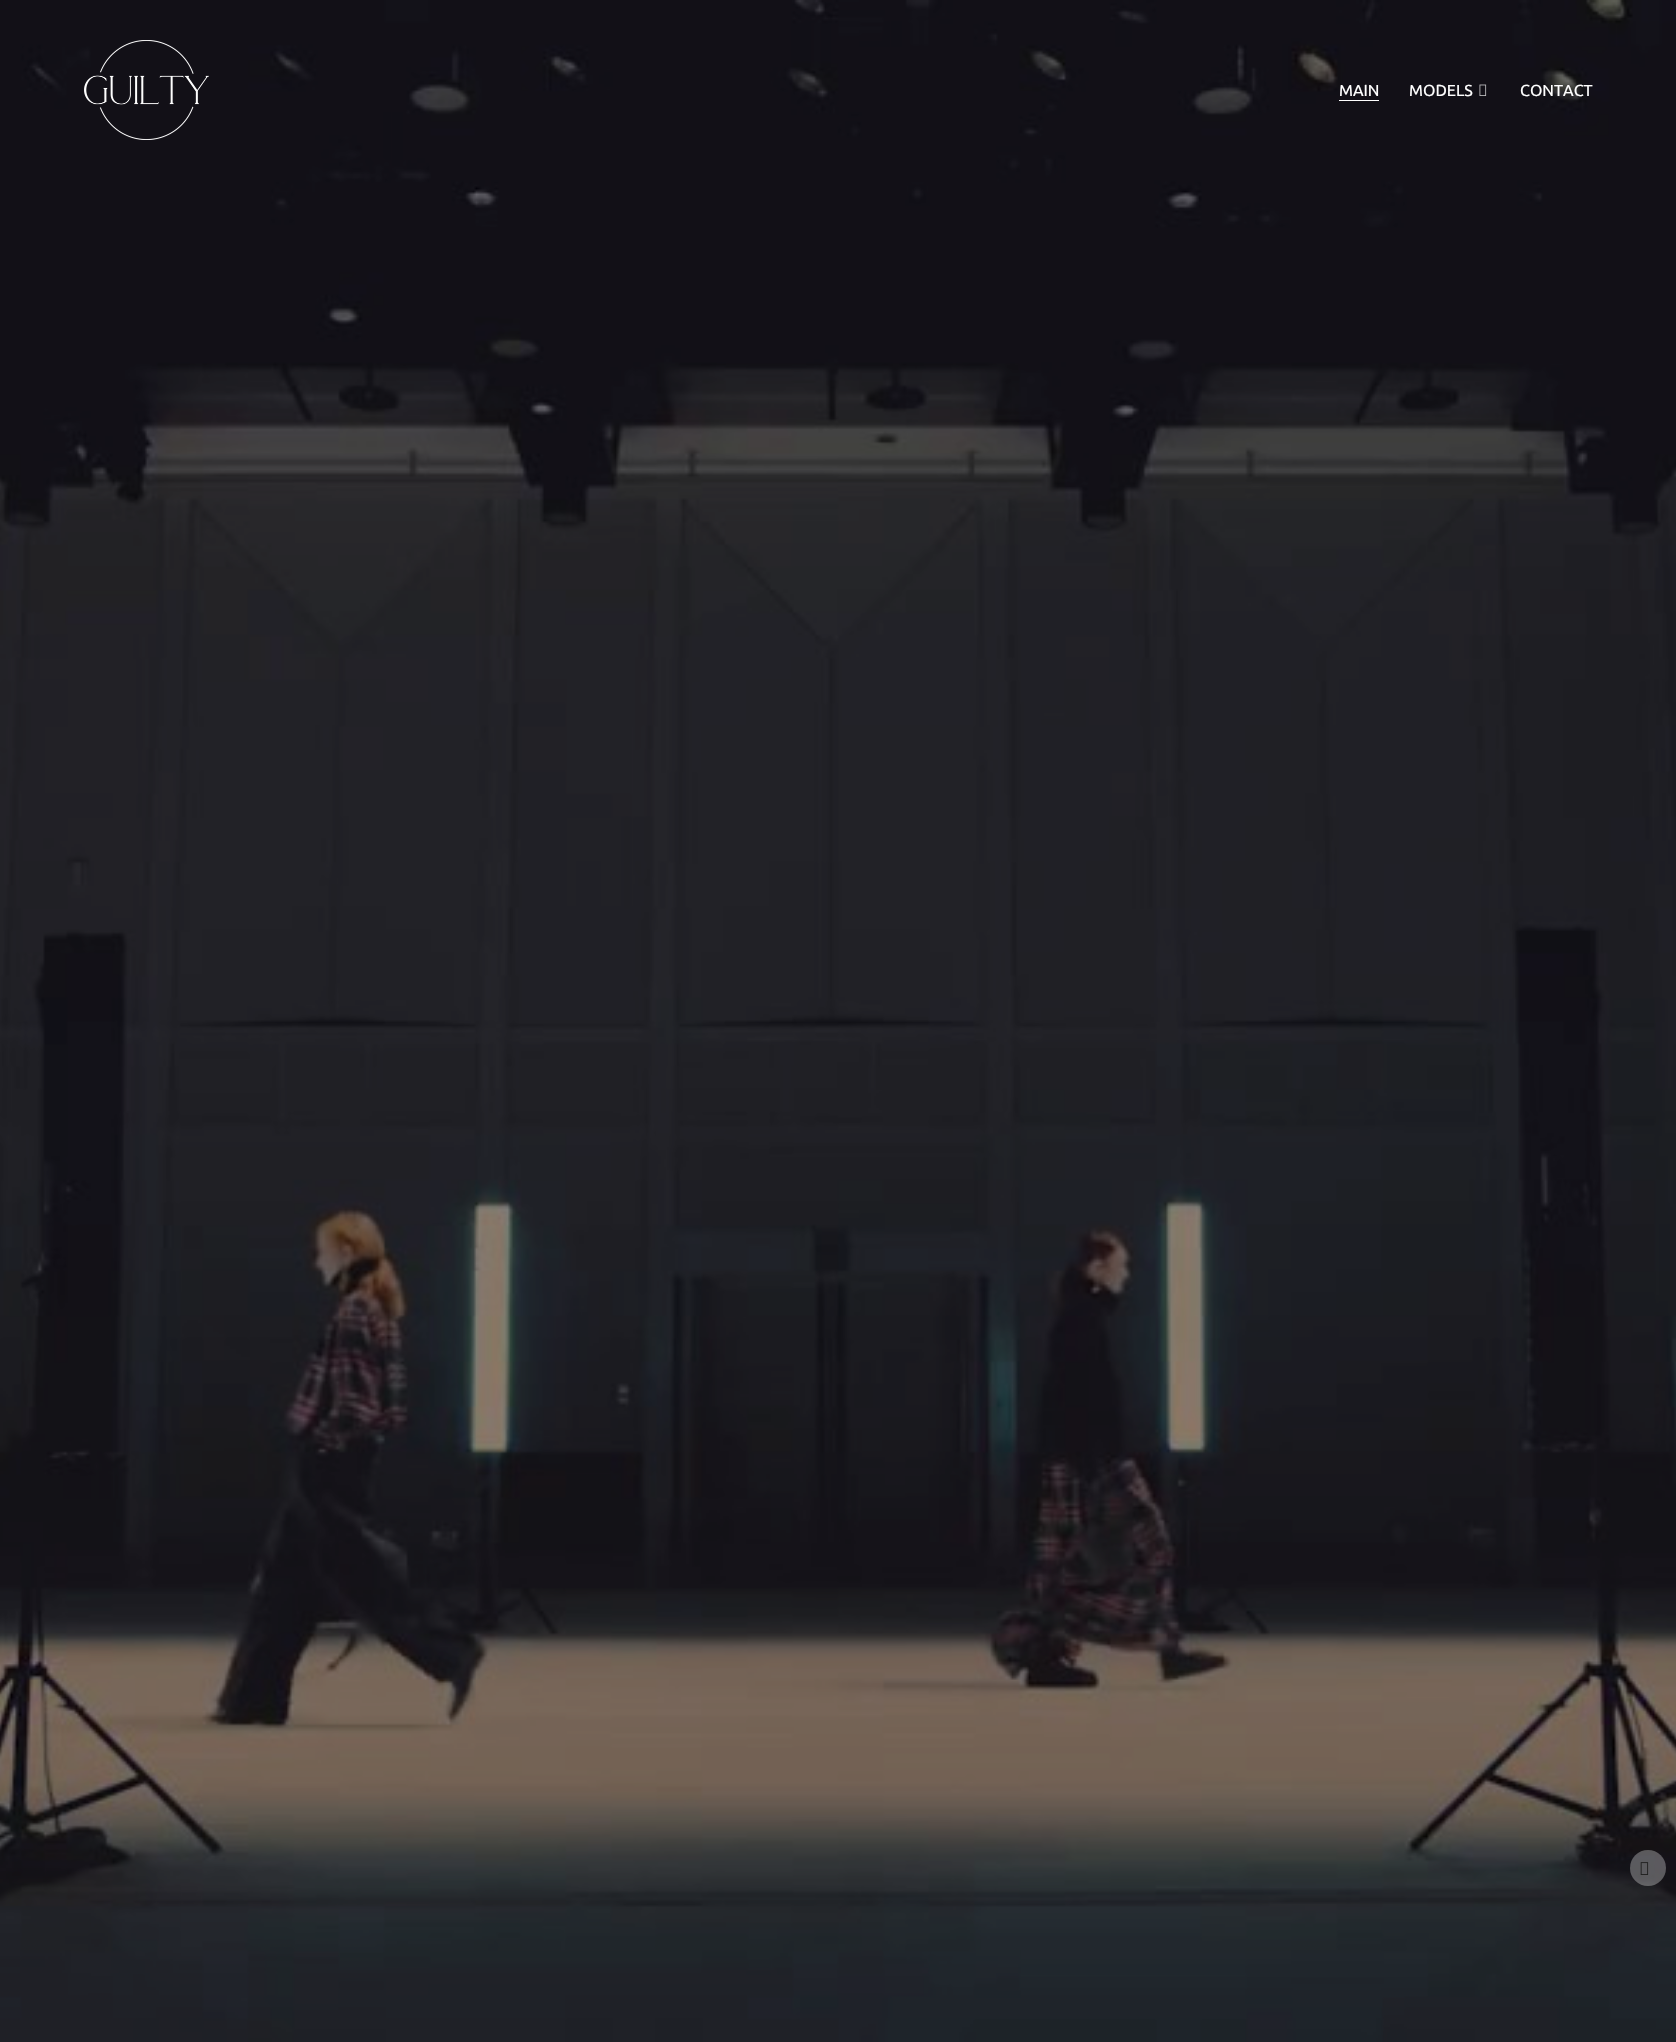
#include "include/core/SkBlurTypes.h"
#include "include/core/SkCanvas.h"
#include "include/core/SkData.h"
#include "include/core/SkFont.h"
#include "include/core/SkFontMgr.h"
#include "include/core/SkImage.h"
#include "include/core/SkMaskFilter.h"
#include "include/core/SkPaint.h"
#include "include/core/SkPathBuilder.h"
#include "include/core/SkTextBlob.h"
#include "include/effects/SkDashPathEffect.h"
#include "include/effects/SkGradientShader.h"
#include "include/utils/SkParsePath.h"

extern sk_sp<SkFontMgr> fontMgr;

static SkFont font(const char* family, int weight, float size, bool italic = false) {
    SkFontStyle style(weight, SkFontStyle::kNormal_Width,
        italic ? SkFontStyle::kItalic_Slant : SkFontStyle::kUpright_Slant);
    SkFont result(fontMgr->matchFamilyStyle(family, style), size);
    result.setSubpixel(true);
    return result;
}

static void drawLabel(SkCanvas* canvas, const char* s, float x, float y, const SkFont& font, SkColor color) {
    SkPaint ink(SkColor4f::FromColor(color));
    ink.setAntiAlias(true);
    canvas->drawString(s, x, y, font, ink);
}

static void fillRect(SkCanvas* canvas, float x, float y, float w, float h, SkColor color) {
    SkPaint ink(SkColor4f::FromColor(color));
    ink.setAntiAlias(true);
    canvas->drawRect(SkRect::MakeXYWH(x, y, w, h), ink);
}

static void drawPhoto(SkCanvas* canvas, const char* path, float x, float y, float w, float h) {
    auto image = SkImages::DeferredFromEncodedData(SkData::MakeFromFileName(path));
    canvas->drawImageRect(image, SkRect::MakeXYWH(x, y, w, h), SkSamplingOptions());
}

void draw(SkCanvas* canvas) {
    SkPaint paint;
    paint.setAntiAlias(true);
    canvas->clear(0xFFFFFFFF);
    drawPhoto(canvas, "assets/img1.png", 0, 0, 1676, 2042);
    drawPhoto(canvas, "assets/img2.png", 84, 40, 125, 100);
    SkFont font1 = font("Ubuntu", 400, 16);
    drawLabel(canvas, "MAIN", 1339, 96, font1, 0xFFFFFFFF);
    fillRect(canvas, 1339, 100, 40, 1, 0xFFFFFFFF);
    drawLabel(canvas, "MODELS", 1409, 96, font1, 0xFFFFFFFF);
    drawPhoto(canvas, "assets/img3.png", 1479, 84, 8, 12);
    drawLabel(canvas, "CONTACT", 1520, 96, font1, 0xFFFFFFFF);
    paint.setColor(0x4DFFFFFF);
    canvas->drawCircle(1648, 1868, 18, paint);
    drawPhoto(canvas, "assets/img4.png", 1640, 1862, 9, 13);
}
